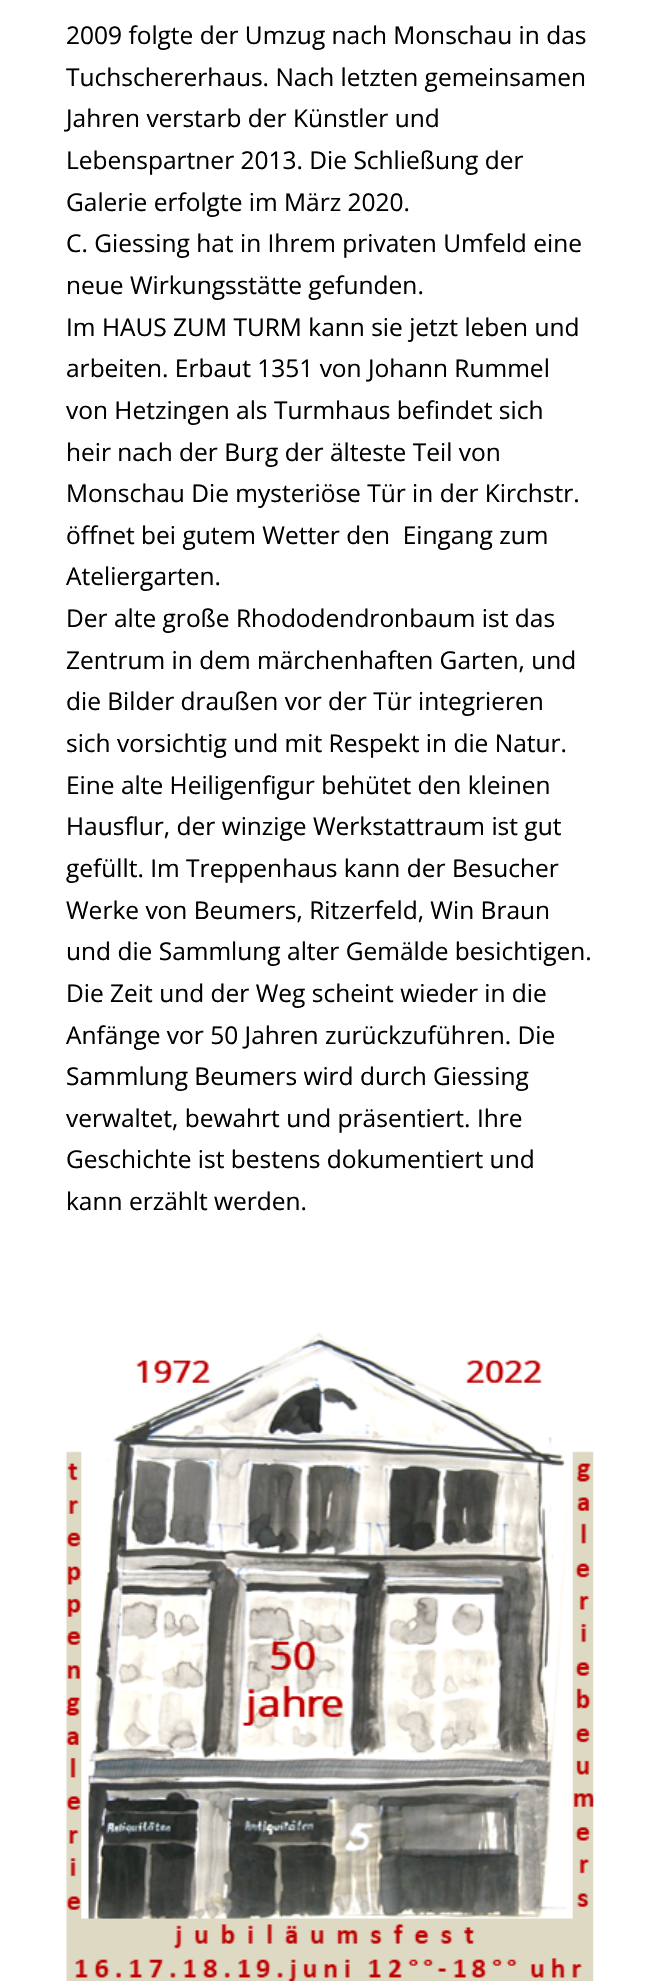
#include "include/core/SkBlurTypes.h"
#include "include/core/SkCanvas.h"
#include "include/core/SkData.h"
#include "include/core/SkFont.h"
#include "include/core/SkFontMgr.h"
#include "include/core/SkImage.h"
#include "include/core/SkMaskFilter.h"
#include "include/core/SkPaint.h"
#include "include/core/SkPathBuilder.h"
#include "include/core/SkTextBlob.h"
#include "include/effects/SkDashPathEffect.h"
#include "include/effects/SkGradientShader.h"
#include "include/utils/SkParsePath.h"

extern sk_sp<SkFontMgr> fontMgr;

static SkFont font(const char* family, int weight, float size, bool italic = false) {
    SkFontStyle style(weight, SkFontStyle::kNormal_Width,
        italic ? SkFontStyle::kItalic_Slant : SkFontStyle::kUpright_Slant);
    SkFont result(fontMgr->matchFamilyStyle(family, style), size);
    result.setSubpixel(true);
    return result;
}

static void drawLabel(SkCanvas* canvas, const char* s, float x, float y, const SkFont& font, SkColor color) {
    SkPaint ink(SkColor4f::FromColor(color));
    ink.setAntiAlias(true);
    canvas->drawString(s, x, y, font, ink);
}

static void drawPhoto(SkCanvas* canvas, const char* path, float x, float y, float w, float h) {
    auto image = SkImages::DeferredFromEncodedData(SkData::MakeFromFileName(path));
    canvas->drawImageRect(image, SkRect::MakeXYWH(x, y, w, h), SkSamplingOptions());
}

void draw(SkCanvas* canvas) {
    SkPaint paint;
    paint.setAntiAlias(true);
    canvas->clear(0xFFFFFFFF);
    SkFont font1 = font("Open Sans", 400, 24.5f);
    drawLabel(canvas, "2009 folgte der Umzug nach Monschau in das", 66, 44, font1, 0xFF000000);
    drawLabel(canvas, "Tuchschererhaus. Nach letzten gemeinsamen", 66, 86, font1, 0xFF000000);
    drawLabel(canvas, "Jahren verstarb der Künstler und", 66, 127, font1, 0xFF000000);
    drawLabel(canvas, "Lebenspartner 2013. Die Schließung der", 66, 169, font1, 0xFF000000);
    drawLabel(canvas, "Galerie erfolgte im März 2020.", 66, 211, font1, 0xFF000000);
    drawLabel(canvas, "C. Giessing hat in Ihrem privaten Umfeld eine", 66, 252, font1, 0xFF000000);
    drawLabel(canvas, "neue Wirkungsstätte gefunden.", 66, 294, font1, 0xFF000000);
    drawLabel(canvas, "Im HAUS ZUM TURM kann sie jetzt leben und", 66, 336, font1, 0xFF000000);
    drawLabel(canvas, "arbeiten. Erbaut 1351 von Johann Rummel", 66, 377, font1, 0xFF000000);
    drawLabel(canvas, "von Hetzingen als Turmhaus befindet sich", 66, 419, font1, 0xFF000000);
    drawLabel(canvas, "heir nach der Burg der älteste Teil von", 66, 461, font1, 0xFF000000);
    drawLabel(canvas, "Monschau Die mysteriöse Tür in der Kirchstr.", 66, 502, font1, 0xFF000000);
    drawLabel(canvas, "öffnet bei gutem Wetter den  Eingang zum", 66, 544, font1, 0xFF000000);
    drawLabel(canvas, "Ateliergarten.", 66, 585, font1, 0xFF000000);
    drawLabel(canvas, "Der alte große Rhododendronbaum ist das", 66, 627, font1, 0xFF000000);
    drawLabel(canvas, "Zentrum in dem märchenhaften Garten, und", 66, 669, font1, 0xFF000000);
    drawLabel(canvas, "die Bilder draußen vor der Tür integrieren", 66, 710, font1, 0xFF000000);
    drawLabel(canvas, "sich vorsichtig und mit Respekt in die Natur.", 66, 752, font1, 0xFF000000);
    drawLabel(canvas, "Eine alte Heiligenfigur behütet den kleinen", 66, 794, font1, 0xFF000000);
    drawLabel(canvas, "Hausflur, der winzige Werkstattraum ist gut", 66, 835, font1, 0xFF000000);
    drawLabel(canvas, "gefüllt. Im Treppenhaus kann der Besucher", 66, 877, font1, 0xFF000000);
    drawLabel(canvas, "Werke von Beumers, Ritzerfeld, Win Braun", 66, 919, font1, 0xFF000000);
    drawLabel(canvas, "und die Sammlung alter Gemälde besichtigen.", 66, 960, font1, 0xFF000000);
    drawLabel(canvas, "Die Zeit und der Weg scheint wieder in die", 66, 1002, font1, 0xFF000000);
    drawLabel(canvas, "Anfänge vor 50 Jahren zurückzuführen. Die", 66, 1044, font1, 0xFF000000);
    drawLabel(canvas, "Sammlung Beumers wird durch Giessing", 66, 1085, font1, 0xFF000000);
    drawLabel(canvas, "verwaltet, bewahrt und präsentiert. Ihre", 66, 1127, font1, 0xFF000000);
    drawLabel(canvas, "Geschichte ist bestens dokumentiert und", 66, 1168, font1, 0xFF000000);
    drawLabel(canvas, "kann erzählt werden.", 66, 1210, font1, 0xFF000000);
    drawPhoto(canvas, "assets/img1.png", 66, 1332, 528, 649);
}
